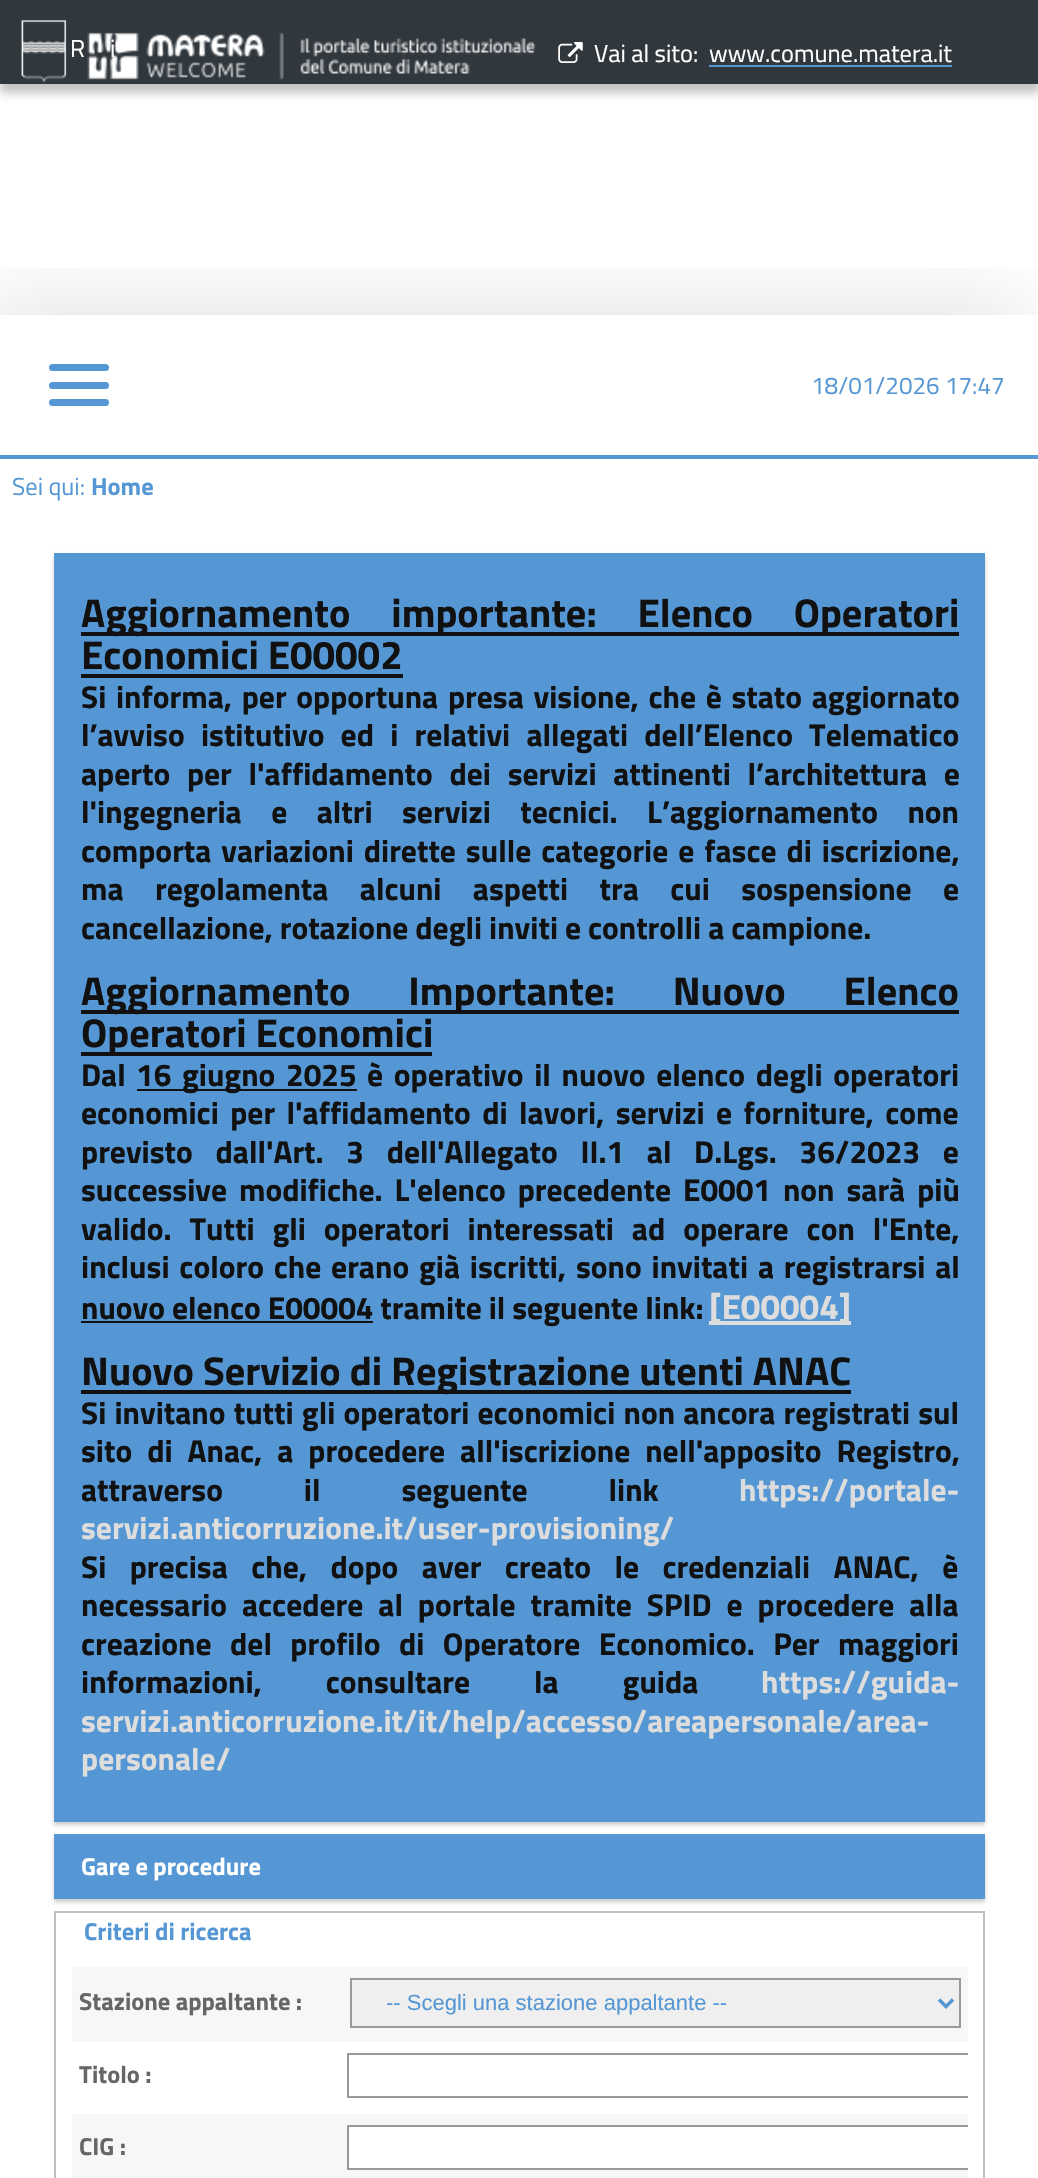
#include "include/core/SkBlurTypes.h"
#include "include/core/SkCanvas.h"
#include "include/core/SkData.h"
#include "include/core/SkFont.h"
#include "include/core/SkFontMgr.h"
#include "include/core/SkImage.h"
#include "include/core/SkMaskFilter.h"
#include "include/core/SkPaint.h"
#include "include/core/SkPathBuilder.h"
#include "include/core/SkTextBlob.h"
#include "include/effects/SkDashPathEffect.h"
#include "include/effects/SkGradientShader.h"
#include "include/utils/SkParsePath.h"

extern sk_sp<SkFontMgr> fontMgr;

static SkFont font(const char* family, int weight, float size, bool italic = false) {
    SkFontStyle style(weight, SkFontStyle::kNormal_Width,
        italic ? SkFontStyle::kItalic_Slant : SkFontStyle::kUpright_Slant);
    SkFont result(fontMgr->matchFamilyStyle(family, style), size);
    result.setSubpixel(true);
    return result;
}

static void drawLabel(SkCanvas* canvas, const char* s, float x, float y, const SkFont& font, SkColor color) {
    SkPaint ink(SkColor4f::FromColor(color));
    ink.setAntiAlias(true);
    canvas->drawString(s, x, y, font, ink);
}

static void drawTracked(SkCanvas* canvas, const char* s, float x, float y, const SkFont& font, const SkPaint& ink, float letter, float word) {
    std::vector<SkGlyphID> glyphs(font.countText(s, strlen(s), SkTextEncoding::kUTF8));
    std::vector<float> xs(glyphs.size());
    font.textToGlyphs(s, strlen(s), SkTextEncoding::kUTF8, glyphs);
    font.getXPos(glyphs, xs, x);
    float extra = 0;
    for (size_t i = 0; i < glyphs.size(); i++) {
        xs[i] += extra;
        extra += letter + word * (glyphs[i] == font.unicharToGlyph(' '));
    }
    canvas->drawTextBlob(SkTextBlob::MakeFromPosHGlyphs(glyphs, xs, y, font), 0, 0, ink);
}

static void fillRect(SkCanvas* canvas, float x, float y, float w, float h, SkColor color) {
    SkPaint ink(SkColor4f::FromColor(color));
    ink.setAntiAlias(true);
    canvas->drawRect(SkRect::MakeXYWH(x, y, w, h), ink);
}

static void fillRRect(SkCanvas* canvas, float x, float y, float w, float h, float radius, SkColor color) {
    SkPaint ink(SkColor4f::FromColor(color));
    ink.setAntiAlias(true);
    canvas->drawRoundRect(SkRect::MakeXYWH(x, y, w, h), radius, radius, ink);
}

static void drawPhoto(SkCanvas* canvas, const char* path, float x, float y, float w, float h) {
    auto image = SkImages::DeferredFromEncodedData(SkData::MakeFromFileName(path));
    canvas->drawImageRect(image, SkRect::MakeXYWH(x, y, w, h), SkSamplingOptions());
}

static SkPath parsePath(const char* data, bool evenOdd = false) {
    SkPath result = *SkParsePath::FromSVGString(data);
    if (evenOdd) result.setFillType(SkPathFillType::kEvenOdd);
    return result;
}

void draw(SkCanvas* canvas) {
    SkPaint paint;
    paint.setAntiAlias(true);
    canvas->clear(0xFFFFFFFF);
    canvas->save();
    canvas->clipRect(SkRect::MakeXYWH(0, 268, 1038, 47));
    paint.setColor(0x21000000);
    paint.setMaskFilter(SkMaskFilter::MakeBlur(kNormal_SkBlurStyle, 44));
    canvas->drawRect(SkRect::MakeXYWH(-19, 313, 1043, 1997), paint);
    paint.setMaskFilter(nullptr);
    canvas->restore();
    paint.setColor(0x4D363636);
    paint.setMaskFilter(SkMaskFilter::MakeBlur(kNormal_SkBlurStyle, 4.5f));
    canvas->drawRect(SkRect::MakeXYWH(0, 9, 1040, 84), paint);
    paint.setMaskFilter(nullptr);
    fillRect(canvas, 0, 0, 1038, 84, 0xFF30373D);
    drawPhoto(canvas, "assets/img1.png", 21, 20, 46, 63);
    SkFont font1 = font("Titillium Web", 400, 24.5f);
    drawLabel(canvas, "R", 70, 57, font1, 0xFFFFFFFF);
    drawLabel(canvas, "i", 110, 57, font1, 0xFFFFFFFF);
    drawPhoto(canvas, "assets/img2.png", 87, 32, 449, 48);
    drawPhoto(canvas, "assets/img3.png", 558, 42, 25, 21);
    drawLabel(canvas, "Vai al sito:", 594, 62, font1, 0xFFFFFFFF);
    drawLabel(canvas, "www.comune.matera.it", 709, 62, font1, 0xFFFFFFFF);
    fillRect(canvas, 709, 65, 243, 2, 0xFF5597D4);
    fillRRect(canvas, 49, 364, 60, 7, 3.5f, 0xFF5597D4);
    fillRRect(canvas, 49, 382, 60, 7, 3.5f, 0xFF5597D4);
    fillRRect(canvas, 49, 399, 60, 7, 3.5f, 0xFF5597D4);
    SkFont font2 = font("Titillium Web", 400, 24.25f);
    drawLabel(canvas, "18/01/2026 17:47", 811, 394, font2, 0xFF5597D4);
    fillRect(canvas, 0, 455, 1038, 4, 0xFF5597D4);
    drawLabel(canvas, "Sei qui:", 12, 495, font1, 0xFF5597D4);
    SkFont font3 = font("Titillium Web", 700, 24.5f);
    drawLabel(canvas, "Home", 91, 495, font3, 0xFF5597D4);
    paint.setColor(0x33000000);
    paint.setMaskFilter(SkMaskFilter::MakeBlur(kNormal_SkBlurStyle, 2));
    canvas->drawRect(SkRect::MakeXYWH(54, 557, 931, 1268), paint);
    paint.setMaskFilter(nullptr);
    fillRect(canvas, 54, 553, 931, 1269, 0xFF5597D4);
    fillRect(canvas, 81, 632, 878, 4, 0xFF111111);
    SkFont font4 = font("Titillium Web", 700, 40.25f);
    paint.setColor(0xFF111111);
    drawTracked(canvas, "Aggiornamento importante: Elenco Operatori", 81, 627, font4, paint, 0, 32);
    drawLabel(canvas, "Economici E00002", 81, 669, font4, 0xFF111111);
    fillRect(canvas, 81, 674, 322, 4, 0xFF111111);
    SkFont font5 = font("Titillium Web", 700, 31.5f);
    drawTracked(canvas, "Si informa, per opportuna presa visione, che è stato aggiornato", 81, 708, font5, paint, 0, 2.75f);
    drawTracked(canvas, "l’avviso istitutivo ed i relativi allegati dell’Elenco Telematico", 81, 746, font5, paint, 0, 9.25f);
    drawTracked(canvas, "aperto per l'affidamento dei servizi attinenti l’architettura e", 81, 785, font5, paint, 0, 9.75f);
    drawTracked(canvas, "l'ingegneria e altri servizi tecnici. L’aggiornamento non", 81, 823, font5, paint, 0, 22.5f);
    drawTracked(canvas, "comporta variazioni dirette sulle categorie e fasce di iscrizione,", 81, 862, font5, paint, 0, 3);
    drawTracked(canvas, "ma regolamenta alcuni aspetti tra cui sospensione e", 81, 900, font5, paint, 0, 24.5f);
    drawLabel(canvas, "cancellazione, rotazione degli inviti e controlli a campione.", 81, 939, font5, 0xFF111111);
    fillRect(canvas, 81, 1010, 878, 4, 0xFF111111);
    drawTracked(canvas, "Aggiornamento Importante: Nuovo Elenco", 81, 1005, font4, paint, 0, 49);
    fillRect(canvas, 81, 1052, 351, 4, 0xFF111111);
    drawLabel(canvas, "Operatori Economici", 81, 1047, font4, 0xFF111111);
    drawLabel(canvas, "Dal", 81, 1086, font5, 0xFF111111);
    fillRect(canvas, 137, 1089, 220, 2, 0xFF111111);
    drawTracked(canvas, "16 giugno 2025", 136, 1086, font5, paint, 0, 3.75f);
    drawTracked(canvas, "è operativo il nuovo elenco degli operatori", 367, 1086, font5, paint, 0, 3.75f);
    drawTracked(canvas, "economici per l'affidamento di lavori, servizi e forniture, come", 81, 1124, font5, paint, 0, 4.5f);
    drawTracked(canvas, "previsto dall'Art. 3 dell'Allegato II.1 al D.Lgs. 36/2023 e", 81, 1163, font5, paint, 0, 15.75f);
    drawTracked(canvas, "successive modifiche. L'elenco precedente E0001 non sarà più", 81, 1201, font5, paint, 0, 5);
    drawTracked(canvas, "valido. Tutti gli operatori interessati ad operare con l'Ente,", 81, 1240, font5, paint, 0, 11);
    drawTracked(canvas, "inclusi coloro che erano già iscritti, sono invitati a registrarsi al", 81, 1278, font5, paint, 0, 2.9f);
    fillRect(canvas, 81, 1321, 292, 2, 0xFF111111);
    drawLabel(canvas, "nuovo elenco E00004 tramite il seguente link:", 81, 1319, font5, 0xFF111111);
    fillRect(canvas, 709, 1321, 142, 4, 0xFFDDDDDD);
    SkFont font6 = font("Titillium Web", 700, 35);
    drawLabel(canvas, "[E00004]", 709, 1319, font6, 0xFFDDDDDD);
    fillRect(canvas, 81, 1390, 770, 4, 0xFF111111);
    drawLabel(canvas, "Nuovo Servizio di Registrazione utenti ANAC", 81, 1385, font4, 0xFF111111);
    drawTracked(canvas, "Si invitano tutti gli operatori economici non ancora registrati sul", 81, 1424, font5, paint, 0, 1.25f);
    drawTracked(canvas, "sito di Anac, a procedere all'iscrizione nell'apposito Registro,", 81, 1462, font5, paint, 0, 8);
    drawTracked(canvas, "attraverso il seguente link", 81, 1501, font5, paint, 0, 74);
    drawLabel(canvas, "https://portale-", 739, 1501, font5, 0xFFDDDDDD);
    drawLabel(canvas, "servizi.anticorruzione.it/user-provisioning/", 81, 1539, font5, 0xFFDDDDDD);
    drawTracked(canvas, "Si precisa che, dopo aver creato le credenziali ANAC, è", 81, 1578, font5, paint, 0, 16.5f);
    drawTracked(canvas, "necessario accedere al portale tramite SPID e procedere alla", 81, 1616, font5, paint, 0, 8);
    drawTracked(canvas, "creazione del profilo di Operatore Economico. Per maggiori", 81, 1655, font5, paint, 0, 11.5f);
    drawTracked(canvas, "informazioni, consultare la guida", 81, 1693, font5, paint, 0, 57);
    drawLabel(canvas, "https://guida-", 761, 1693, font5, 0xFFDDDDDD);
    drawLabel(canvas, "servizi.anticorruzione.it/it/help/accesso/areapersonale/area-", 81, 1732, font5, 0xFFDDDDDD);
    drawLabel(canvas, "personale/", 81, 1770, font5, 0xFFDDDDDD);
    paint.setColor(0x33000000);
    paint.setMaskFilter(SkMaskFilter::MakeBlur(kNormal_SkBlurStyle, 2));
    canvas->drawRect(SkRect::MakeXYWH(54, 1838, 931, 64), paint);
    paint.setMaskFilter(nullptr);
    fillRect(canvas, 54, 1834, 931, 65, 0xFF5597D4);
    drawLabel(canvas, "Gare e procedure", 81, 1875, font3, 0xFFFFFFFF);
    paint.setStroke(true);
    paint.setStrokeWidth(2);
    paint.setColor(0xFFC0C0C0);
    canvas->drawRect(SkRect::MakeXYWH(55, 1912, 929, 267), paint);
    drawLabel(canvas, "Criteri di ricerca", 84, 1940, font3, 0xFF5597D4);
    fillRect(canvas, 72, 1967, 896, 75, 0xFFF6F7F9);
    drawLabel(canvas, "Stazione appaltante :", 79, 2010, font3, 0xFF666666);
    paint.setStroke(false);
    paint.setColor(0xFFEFEFEF);
    canvas->drawRect(SkRect::MakeXYWH(351, 1979, 609, 48), paint);
    paint.setStroke(true);
    paint.setColor(0xFF999999);
    canvas->drawRect(SkRect::MakeXYWH(351, 1979, 609, 48), paint);
    paint.setStrokeWidth(3.5f);
    paint.setColor(0xFF5597D4);
    canvas->drawPath(parsePath("M939 1999.5L946 2006.5L953 1999.5"), paint);
    SkFont font7 = font("Liberation Sans", 400, 22);
    drawLabel(canvas, "-- Scegli una stazione appaltante --", 386, 2010, font7, 0xFF5597D4);
    drawLabel(canvas, "Titolo :", 79, 2083, font3, 0xFF666666);
    canvas->save();
    canvas->clipRect(SkRect::MakeXYWH(72, 2042, 896, 72));
    paint.setStrokeWidth(2);
    paint.setColor(0xFF999999);
    canvas->drawRect(SkRect::MakeXYWH(348, 2054, 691, 43), paint);
    canvas->restore();
    fillRect(canvas, 72, 2114, 896, 64, 0xFFF6F7F9);
    drawLabel(canvas, "CIG :", 79, 2155, font3, 0xFF666666);
    fillRect(canvas, 349, 2127, 619, 41, 0xFFFFFFFF);
    canvas->save();
    canvas->clipRect(SkRect::MakeXYWH(72, 2114, 896, 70));
    canvas->drawRect(SkRect::MakeXYWH(348, 2126, 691, 43), paint);
    canvas->restore();
}
